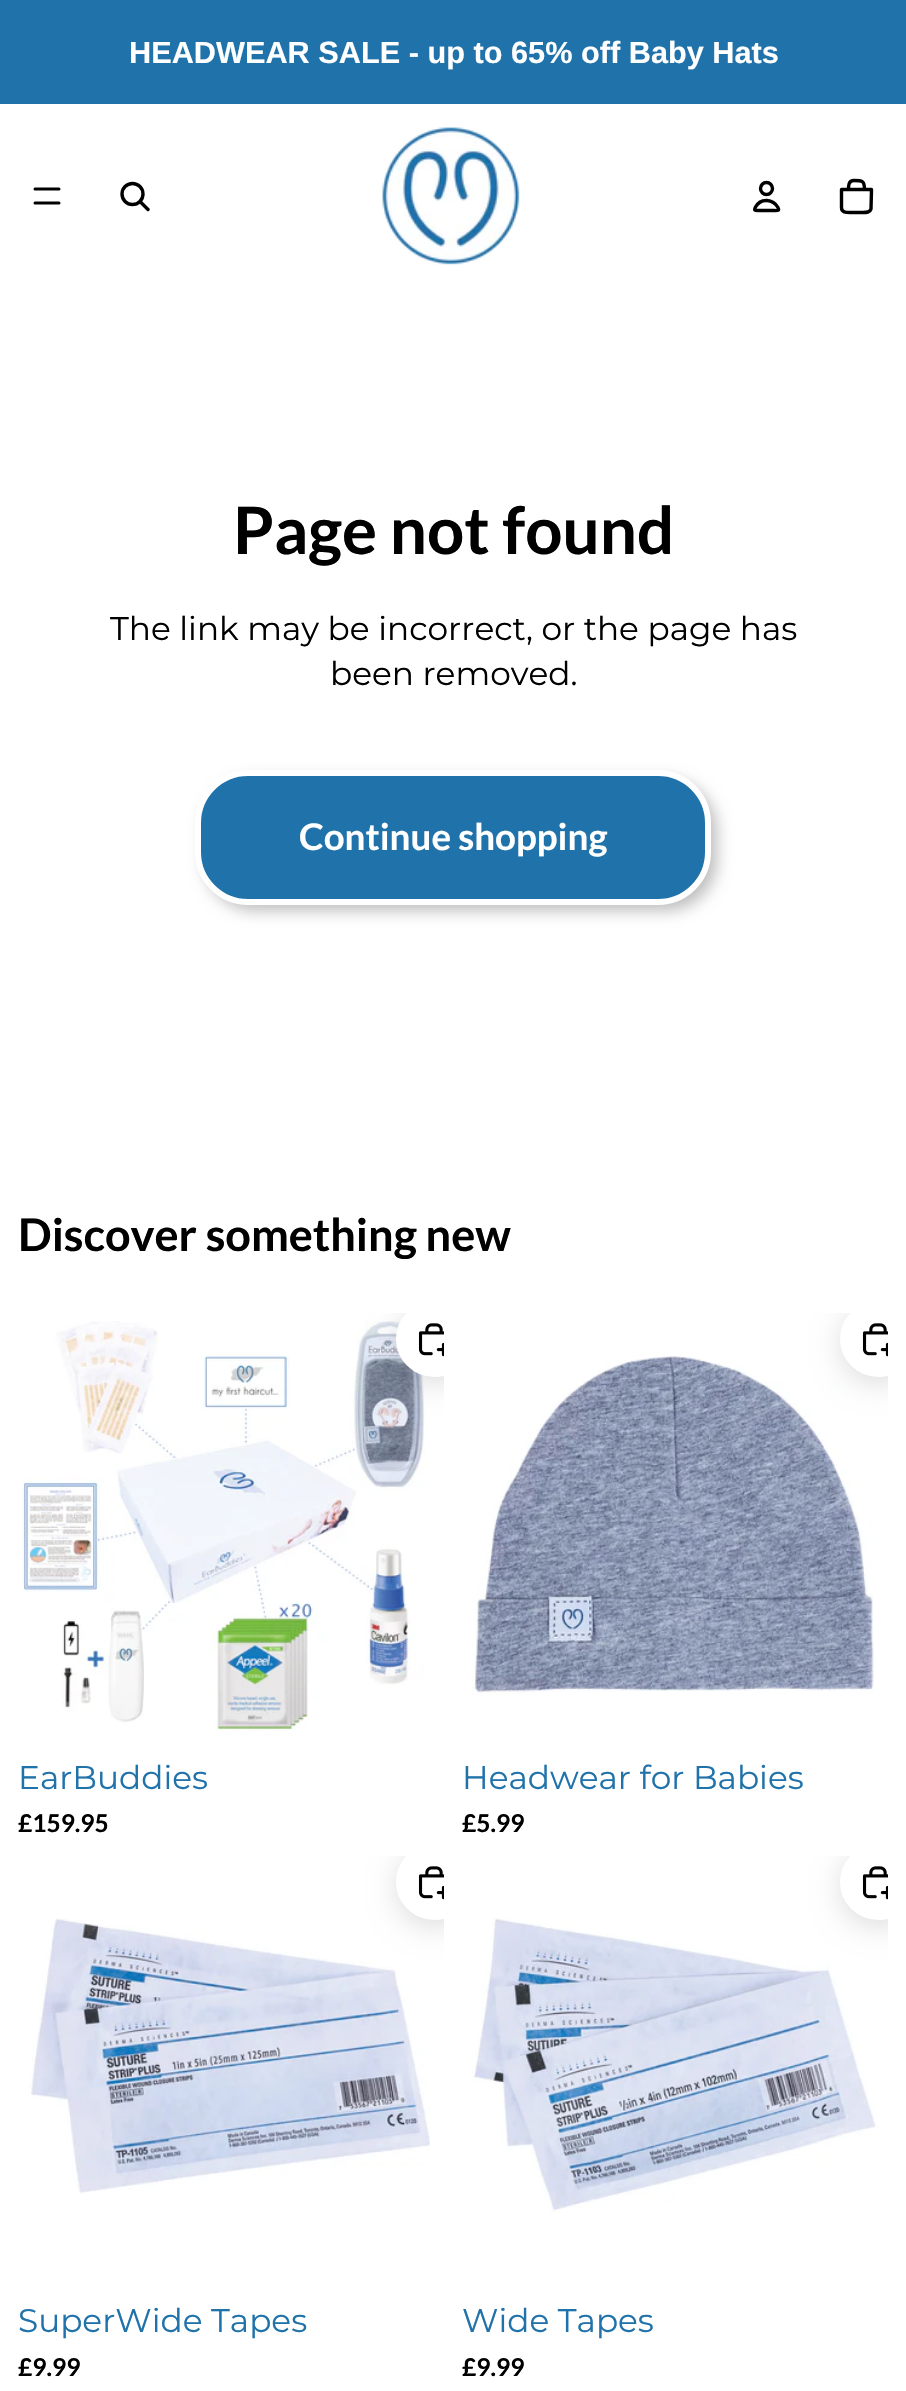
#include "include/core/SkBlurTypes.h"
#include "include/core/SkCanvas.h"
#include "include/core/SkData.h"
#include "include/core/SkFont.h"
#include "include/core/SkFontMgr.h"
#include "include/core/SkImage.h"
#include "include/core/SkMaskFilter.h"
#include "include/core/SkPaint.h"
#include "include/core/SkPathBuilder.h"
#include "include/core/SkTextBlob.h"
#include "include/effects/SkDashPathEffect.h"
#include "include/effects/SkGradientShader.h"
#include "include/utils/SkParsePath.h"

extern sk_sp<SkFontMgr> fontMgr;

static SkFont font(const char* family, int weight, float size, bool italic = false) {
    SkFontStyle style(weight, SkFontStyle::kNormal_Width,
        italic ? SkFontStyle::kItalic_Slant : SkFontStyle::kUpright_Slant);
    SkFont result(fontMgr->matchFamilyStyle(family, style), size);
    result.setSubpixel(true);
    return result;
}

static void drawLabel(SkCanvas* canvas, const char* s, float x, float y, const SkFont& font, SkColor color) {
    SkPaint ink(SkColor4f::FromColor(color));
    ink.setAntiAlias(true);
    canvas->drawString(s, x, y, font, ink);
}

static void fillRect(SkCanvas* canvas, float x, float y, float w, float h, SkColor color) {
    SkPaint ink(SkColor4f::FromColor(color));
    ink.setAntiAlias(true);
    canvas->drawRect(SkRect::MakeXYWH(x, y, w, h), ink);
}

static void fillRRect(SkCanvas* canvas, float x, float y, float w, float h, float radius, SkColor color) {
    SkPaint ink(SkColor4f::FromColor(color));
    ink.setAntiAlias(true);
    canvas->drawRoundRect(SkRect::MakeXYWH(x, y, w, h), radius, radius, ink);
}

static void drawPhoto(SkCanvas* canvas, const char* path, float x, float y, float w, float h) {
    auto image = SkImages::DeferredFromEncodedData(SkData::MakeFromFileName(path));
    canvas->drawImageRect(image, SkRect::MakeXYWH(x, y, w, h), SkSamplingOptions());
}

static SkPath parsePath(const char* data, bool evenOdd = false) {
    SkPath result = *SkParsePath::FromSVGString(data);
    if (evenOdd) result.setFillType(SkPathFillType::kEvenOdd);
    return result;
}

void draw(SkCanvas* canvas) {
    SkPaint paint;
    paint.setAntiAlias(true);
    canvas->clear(0xFFFFFFFF);
    fillRect(canvas, 0, 0, 906, 104, 0xFF2072AA);
    SkFont font1 = font("Liberation Sans", 700, 30.7f);
    drawLabel(canvas, "HEADWEAR SALE - up to 65% off Baby Hats", 129, 63, font1, 0xFFFFFFFF);
    paint.setStroke(true);
    paint.setStrokeWidth(3);
    paint.setStrokeCap(SkPaint::kRound_Cap);
    paint.setColor(0xFF000000);
    canvas->drawPath(parsePath("M35 189H59M35 203H59"), paint);
    paint.setStrokeWidth(3.4f);
    paint.setStrokeCap(SkPaint::kButt_Cap);
    canvas->drawCircle(132.5f, 194, 10.5f, paint);
    paint.setStrokeCap(SkPaint::kRound_Cap);
    paint.setStrokeJoin(SkPaint::kRound_Join);
    canvas->drawPath(parsePath("M140.5 202L148 209.5"), paint);
    drawPhoto(canvas, "assets/img1.png", 382, 127, 138, 138);
    paint.setStrokeCap(SkPaint::kButt_Cap);
    paint.setStrokeJoin(SkPaint::kMiter_Join);
    canvas->drawCircle(766.5f, 188.5f, 6, paint);
    paint.setStrokeCap(SkPaint::kRound_Cap);
    paint.setStrokeJoin(SkPaint::kRound_Join);
    canvas->drawPath(parsePath("M755.5 207C753.5 211 755 210.5 759.5 210.5H773.5C774 210.5 777.5 211 778.5 210C779 209 778 208.5 778 207.5C773 199 761 197.5 755.5 207"), paint);
    canvas->drawPath(parsePath("M841.5 189.5H871.5L871 209C870 212.5 866.5 212.5 863 212.5H850C846 212.5 841.5 212.5 841.5 207.5ZM854 180.5C862 180.5 864.5 180.5 864.5 189.5H848.5C848.5 185.5 848.5 180.5 854 180.5"), paint);
    SkFont font2 = font("Lato", 700, 65.5f);
    drawLabel(canvas, "Page not found", 233, 554, font2, 0xFF000000);
    SkFont font3 = font("Montserrat", 400, 32.75f);
    drawLabel(canvas, "The link may be incorrect, or the page has", 110, 640, font3, 0xFF000000);
    drawLabel(canvas, "been removed.", 330, 685, font3, 0xFF000000);
    paint.setStroke(false);
    paint.setColor(0x40000000);
    paint.setMaskFilter(SkMaskFilter::MakeBlur(kNormal_SkBlurStyle, 7.5f));
    canvas->drawRoundRect(SkRect::MakeXYWH(204, 779, 513, 132), 51, 51, paint);
    paint.setMaskFilter(nullptr);
    fillRRect(canvas, 197, 771, 513, 132, 51, 0xFF2072AA);
    paint.setStroke(true);
    paint.setStrokeWidth(6);
    paint.setStrokeCap(SkPaint::kButt_Cap);
    paint.setStrokeJoin(SkPaint::kMiter_Join);
    paint.setColor(0xFFFFFFFF);
    canvas->drawRoundRect(SkRect::MakeXYWH(198, 773, 510, 129), 50, 50, paint);
    SkFont font4 = font("Lato", 700, 36.75f);
    drawLabel(canvas, "Continue shopping", 299, 850, font4, 0xFFFFFFFF);
    SkFont font5 = font("Lato", 700, 45);
    drawLabel(canvas, "Discover something new", 18, 1251, font5, 0xFF000000);
    drawPhoto(canvas, "assets/img2.png", 22, 1321, 403, 409);
    canvas->save();
    canvas->clipRect(SkRect::MakeXYWH(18, 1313, 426, 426));
    paint.setStroke(false);
    paint.setColor(0x26000000);
    paint.setMaskFilter(SkMaskFilter::MakeBlur(kNormal_SkBlurStyle, 15));
    canvas->drawRoundRect(SkRect::MakeXYWH(398, 1308, 73, 74), 36.5f, 36.5f, paint);
    paint.setMaskFilter(nullptr);
    canvas->restore();
    canvas->save();
    canvas->clipRect(SkRect::MakeXYWH(18, 1313, 426, 426));
    paint.setColor(0xFFFFFFFF);
    canvas->drawRoundRect(SkRect::MakeXYWH(397.5f, 1302.5f, 74, 73), 36.5f, 36.5f, paint);
    paint.setStroke(true);
    paint.setStrokeWidth(3);
    canvas->drawRoundRect(SkRect::MakeXYWH(397.5f, 1302.5f, 74, 73), 36.5f, 36.5f, paint);
    canvas->restore();
    drawPhoto(canvas, "assets/img3.png", 418, 1323, 26, 34);
    drawLabel(canvas, "EarBuddies", 18, 1789, font3, 0xFF2072AA);
    SkFont font6 = font("Lato", 700, 24.5f);
    drawLabel(canvas, "£159.95", 18, 1832, font6, 0xFF000000);
    drawPhoto(canvas, "assets/img4.png", 472, 1356, 402, 339);
    canvas->save();
    canvas->clipRect(SkRect::MakeXYWH(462, 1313, 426, 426));
    paint.setStroke(false);
    paint.setColor(0x26000000);
    paint.setMaskFilter(SkMaskFilter::MakeBlur(kNormal_SkBlurStyle, 15));
    canvas->drawRoundRect(SkRect::MakeXYWH(842, 1308, 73, 74), 36.5f, 36.5f, paint);
    paint.setMaskFilter(nullptr);
    canvas->restore();
    canvas->save();
    canvas->clipRect(SkRect::MakeXYWH(462, 1313, 426, 426));
    paint.setColor(0xFFFFFFFF);
    canvas->drawRoundRect(SkRect::MakeXYWH(841.5f, 1302.5f, 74, 73), 36.5f, 36.5f, paint);
    paint.setStroke(true);
    canvas->drawRoundRect(SkRect::MakeXYWH(841.5f, 1302.5f, 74, 73), 36.5f, 36.5f, paint);
    canvas->restore();
    drawPhoto(canvas, "assets/img3.png", 862, 1323, 26, 34);
    drawLabel(canvas, "Headwear for Babies", 462, 1789, font3, 0xFF2072AA);
    drawLabel(canvas, "£5.99", 462, 1832, font6, 0xFF000000);
    drawPhoto(canvas, "assets/img5.png", 28, 1918, 402, 276);
    canvas->save();
    canvas->clipRect(SkRect::MakeXYWH(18, 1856, 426, 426));
    paint.setStroke(false);
    paint.setColor(0x26000000);
    paint.setMaskFilter(SkMaskFilter::MakeBlur(kNormal_SkBlurStyle, 15));
    canvas->drawRoundRect(SkRect::MakeXYWH(398, 1851, 73, 74), 36.5f, 36.5f, paint);
    paint.setMaskFilter(nullptr);
    canvas->restore();
    canvas->save();
    canvas->clipRect(SkRect::MakeXYWH(18, 1856, 426, 426));
    paint.setColor(0xFFFFFFFF);
    canvas->drawRoundRect(SkRect::MakeXYWH(397.5f, 1845.5f, 74, 73), 36.5f, 36.5f, paint);
    paint.setStroke(true);
    canvas->drawRoundRect(SkRect::MakeXYWH(397.5f, 1845.5f, 74, 73), 36.5f, 36.5f, paint);
    canvas->restore();
    drawPhoto(canvas, "assets/img3.png", 418, 1866, 26, 34);
    drawLabel(canvas, "SuperWide Tapes", 18, 2332, font3, 0xFF2072AA);
    drawLabel(canvas, "£9.99", 18, 2376, font6, 0xFF000000);
    drawPhoto(canvas, "assets/img6.png", 472, 1918, 404, 294);
    canvas->save();
    canvas->clipRect(SkRect::MakeXYWH(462, 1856, 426, 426));
    paint.setStroke(false);
    paint.setColor(0x26000000);
    paint.setMaskFilter(SkMaskFilter::MakeBlur(kNormal_SkBlurStyle, 15));
    canvas->drawRoundRect(SkRect::MakeXYWH(842, 1851, 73, 74), 36.5f, 36.5f, paint);
    paint.setMaskFilter(nullptr);
    canvas->restore();
    canvas->save();
    canvas->clipRect(SkRect::MakeXYWH(462, 1856, 426, 426));
    paint.setColor(0xFFFFFFFF);
    canvas->drawRoundRect(SkRect::MakeXYWH(841.5f, 1845.5f, 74, 73), 36.5f, 36.5f, paint);
    paint.setStroke(true);
    canvas->drawRoundRect(SkRect::MakeXYWH(841.5f, 1845.5f, 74, 73), 36.5f, 36.5f, paint);
    canvas->restore();
    drawPhoto(canvas, "assets/img3.png", 862, 1866, 26, 34);
    drawLabel(canvas, "Wide Tapes", 462, 2332, font3, 0xFF2072AA);
    drawLabel(canvas, "£9.99", 462, 2376, font6, 0xFF000000);
}
